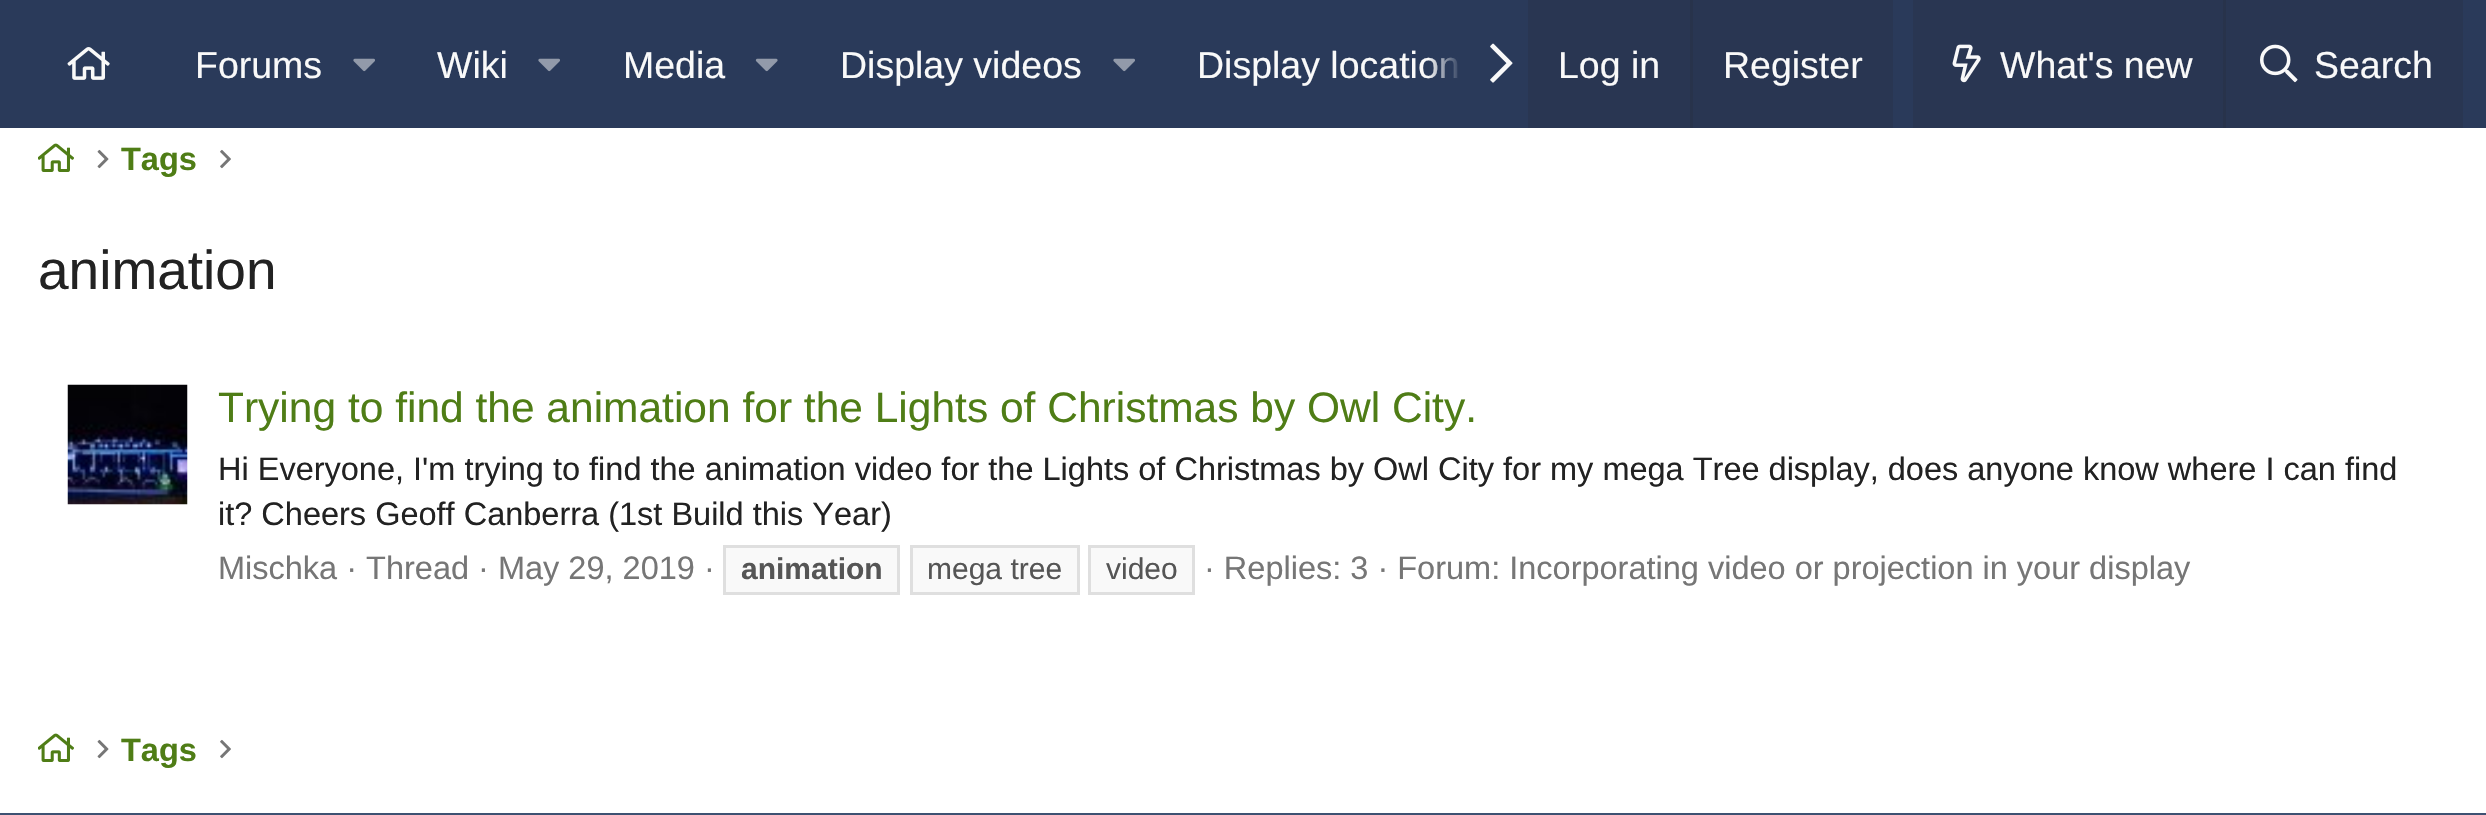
#include "include/core/SkBlurTypes.h"
#include "include/core/SkCanvas.h"
#include "include/core/SkData.h"
#include "include/core/SkFont.h"
#include "include/core/SkFontMgr.h"
#include "include/core/SkImage.h"
#include "include/core/SkMaskFilter.h"
#include "include/core/SkPaint.h"
#include "include/core/SkPathBuilder.h"
#include "include/core/SkTextBlob.h"
#include "include/effects/SkDashPathEffect.h"
#include "include/effects/SkGradientShader.h"
#include "include/utils/SkParsePath.h"

extern sk_sp<SkFontMgr> fontMgr;

static SkFont font(const char* family, int weight, float size, bool italic = false) {
    SkFontStyle style(weight, SkFontStyle::kNormal_Width,
        italic ? SkFontStyle::kItalic_Slant : SkFontStyle::kUpright_Slant);
    SkFont result(fontMgr->matchFamilyStyle(family, style), size);
    result.setSubpixel(true);
    return result;
}

static void drawLabel(SkCanvas* canvas, const char* s, float x, float y, const SkFont& font, SkColor color) {
    SkPaint ink(SkColor4f::FromColor(color));
    ink.setAntiAlias(true);
    canvas->drawString(s, x, y, font, ink);
}

static void fillRect(SkCanvas* canvas, float x, float y, float w, float h, SkColor color) {
    SkPaint ink(SkColor4f::FromColor(color));
    ink.setAntiAlias(true);
    canvas->drawRect(SkRect::MakeXYWH(x, y, w, h), ink);
}

static void drawPhoto(SkCanvas* canvas, const char* path, float x, float y, float w, float h) {
    auto image = SkImages::DeferredFromEncodedData(SkData::MakeFromFileName(path));
    canvas->drawImageRect(image, SkRect::MakeXYWH(x, y, w, h), SkSamplingOptions());
}

void draw(SkCanvas* canvas) {
    SkPaint paint;
    paint.setAntiAlias(true);
    canvas->clear(0xFFFFFFFF);
    fillRect(canvas, 0, 0, 2486, 128, 0xFF2A3A5A);
    drawPhoto(canvas, "assets/img1.png", 67, 47, 43, 33);
    SkFont font1 = font("Liberation Sans", 400, 37.5f);
    drawLabel(canvas, "Forums", 195, 78, font1, 0xFFF9F9F9);
    drawPhoto(canvas, "assets/img2.png", 353, 58, 22, 14);
    drawLabel(canvas, "Wiki", 437, 78, font1, 0xFFF9F9F9);
    drawPhoto(canvas, "assets/img2.png", 538, 58, 22, 14);
    drawLabel(canvas, "Media", 623, 78, font1, 0xFFF9F9F9);
    drawPhoto(canvas, "assets/img3.png", 755, 58, 23, 14);
    drawLabel(canvas, "Display videos", 840, 78, font1, 0xFFF9F9F9);
    drawPhoto(canvas, "assets/img2.png", 1113, 58, 22, 14);
    drawLabel(canvas, "Display location", 1197, 78, font1, 0xFFF9F9F9);
    {
        const SkColor colors[] = {0x002A3A5A, 0xFF2A3A5A};
        const float stops[] = {0, 0.33f};
        const SkPoint ends[] = {{1428, 64}, {1528, 64}};
        paint.setShader(SkGradientShader::MakeLinear(ends, colors, stops, 2, SkTileMode::kClamp));
        paint.setAlpha(255);
    }
    canvas->drawRect(SkRect::MakeXYWH(1429, 57, 29, 22), paint);
    drawPhoto(canvas, "assets/img4.png", 1490, 43, 23, 40);
    fillRect(canvas, 1528, 0, 365, 128, 0xFF293652);
    drawLabel(canvas, "Log in", 1558, 78, font1, 0xFFF9F9F9);
    fillRect(canvas, 1690, 0, 3, 128, 0xFF28334B);
    drawLabel(canvas, "Register", 1723, 78, font1, 0xFFF9F9F9);
    fillRect(canvas, 1913, 0, 550, 128, 0xFF293652);
    drawPhoto(canvas, "assets/img5.png", 1952, 44, 29, 39);
    drawLabel(canvas, "What's new", 2000, 78, font1, 0xFFF9F9F9);
    fillRect(canvas, 2223, 0, 3, 128, 0xFF28334B);
    drawPhoto(canvas, "assets/img6.png", 2260, 44, 38, 39);
    drawLabel(canvas, "Search", 2314, 78, font1, 0xFFF9F9F9);
    drawPhoto(canvas, "assets/img7.png", 38, 143, 36, 29);
    drawPhoto(canvas, "assets/img8.png", 97, 149, 12, 20);
    SkFont font2 = font("Liberation Sans", 700, 32.5f);
    drawLabel(canvas, "Tags", 121, 170, font2, 0xFF4F7D16);
    drawPhoto(canvas, "assets/img9.png", 220, 149, 11, 20);
    SkFont font3 = font("Liberation Sans", 400, 55);
    drawLabel(canvas, "animation", 38, 289, font3, 0xFF222222);
    drawPhoto(canvas, "assets/img10.png", 67, 384, 121, 121);
    SkFont font4 = font("Liberation Sans", 400, 42.5f);
    drawLabel(canvas, "Trying to find the animation for the Lights of Christmas by Owl City.", 218, 422, font4, 0xFF4F7D16);
    SkFont font5 = font("Liberation Sans", 400, 32.5f);
    drawLabel(canvas, "Hi Everyone, I'm trying to find the animation video for the Lights of Christmas by Owl City for my mega Tree display, does anyone know where I can find", 218, 480, font5, 0xFF222222);
    drawLabel(canvas, "it? Cheers Geoff Canberra (1st Build this Year)", 218, 525, font5, 0xFF222222);
    drawLabel(canvas, "Mischka · Thread · May 29, 2019 ·", 218, 579, font5, 0xFF767676);
    paint.setShader(nullptr);
    paint.setColor(0xFFF9F9F9);
    canvas->drawRect(SkRect::MakeXYWH(724.5f, 546.5f, 174, 47), paint);
    paint.setStroke(true);
    paint.setStrokeWidth(3);
    paint.setColor(0xFFDFDFDF);
    canvas->drawRect(SkRect::MakeXYWH(724.5f, 546.5f, 174, 47), paint);
    SkFont font6 = font("Liberation Sans", 700, 30);
    drawLabel(canvas, "animation", 741, 579, font6, 0xFF555555);
    paint.setStroke(false);
    paint.setColor(0xFFF9F9F9);
    canvas->drawRect(SkRect::MakeXYWH(911.5f, 546.5f, 167, 47), paint);
    paint.setStroke(true);
    paint.setColor(0xFFDFDFDF);
    canvas->drawRect(SkRect::MakeXYWH(911.5f, 546.5f, 167, 47), paint);
    SkFont font7 = font("Liberation Sans", 400, 30);
    drawLabel(canvas, "mega tree", 927, 579, font7, 0xFF555555);
    paint.setStroke(false);
    paint.setColor(0xFFF9F9F9);
    canvas->drawRect(SkRect::MakeXYWH(1089.5f, 546.5f, 104, 47), paint);
    paint.setStroke(true);
    paint.setColor(0xFFDFDFDF);
    canvas->drawRect(SkRect::MakeXYWH(1089.5f, 546.5f, 104, 47), paint);
    drawLabel(canvas, "video", 1106, 579, font7, 0xFF555555);
    drawLabel(canvas, "· Replies: 3 · Forum: Incorporating video or projection in your display", 1204, 579, font5, 0xFF767676);
    drawPhoto(canvas, "assets/img7.png", 38, 733, 36, 29);
    drawPhoto(canvas, "assets/img8.png", 97, 739, 12, 20);
    drawLabel(canvas, "Tags", 121, 761, font2, 0xFF4F7D16);
    drawPhoto(canvas, "assets/img9.png", 220, 739, 11, 20);
    fillRect(canvas, 0, 813, 2486, 2, 0xFF3E5172);
}
